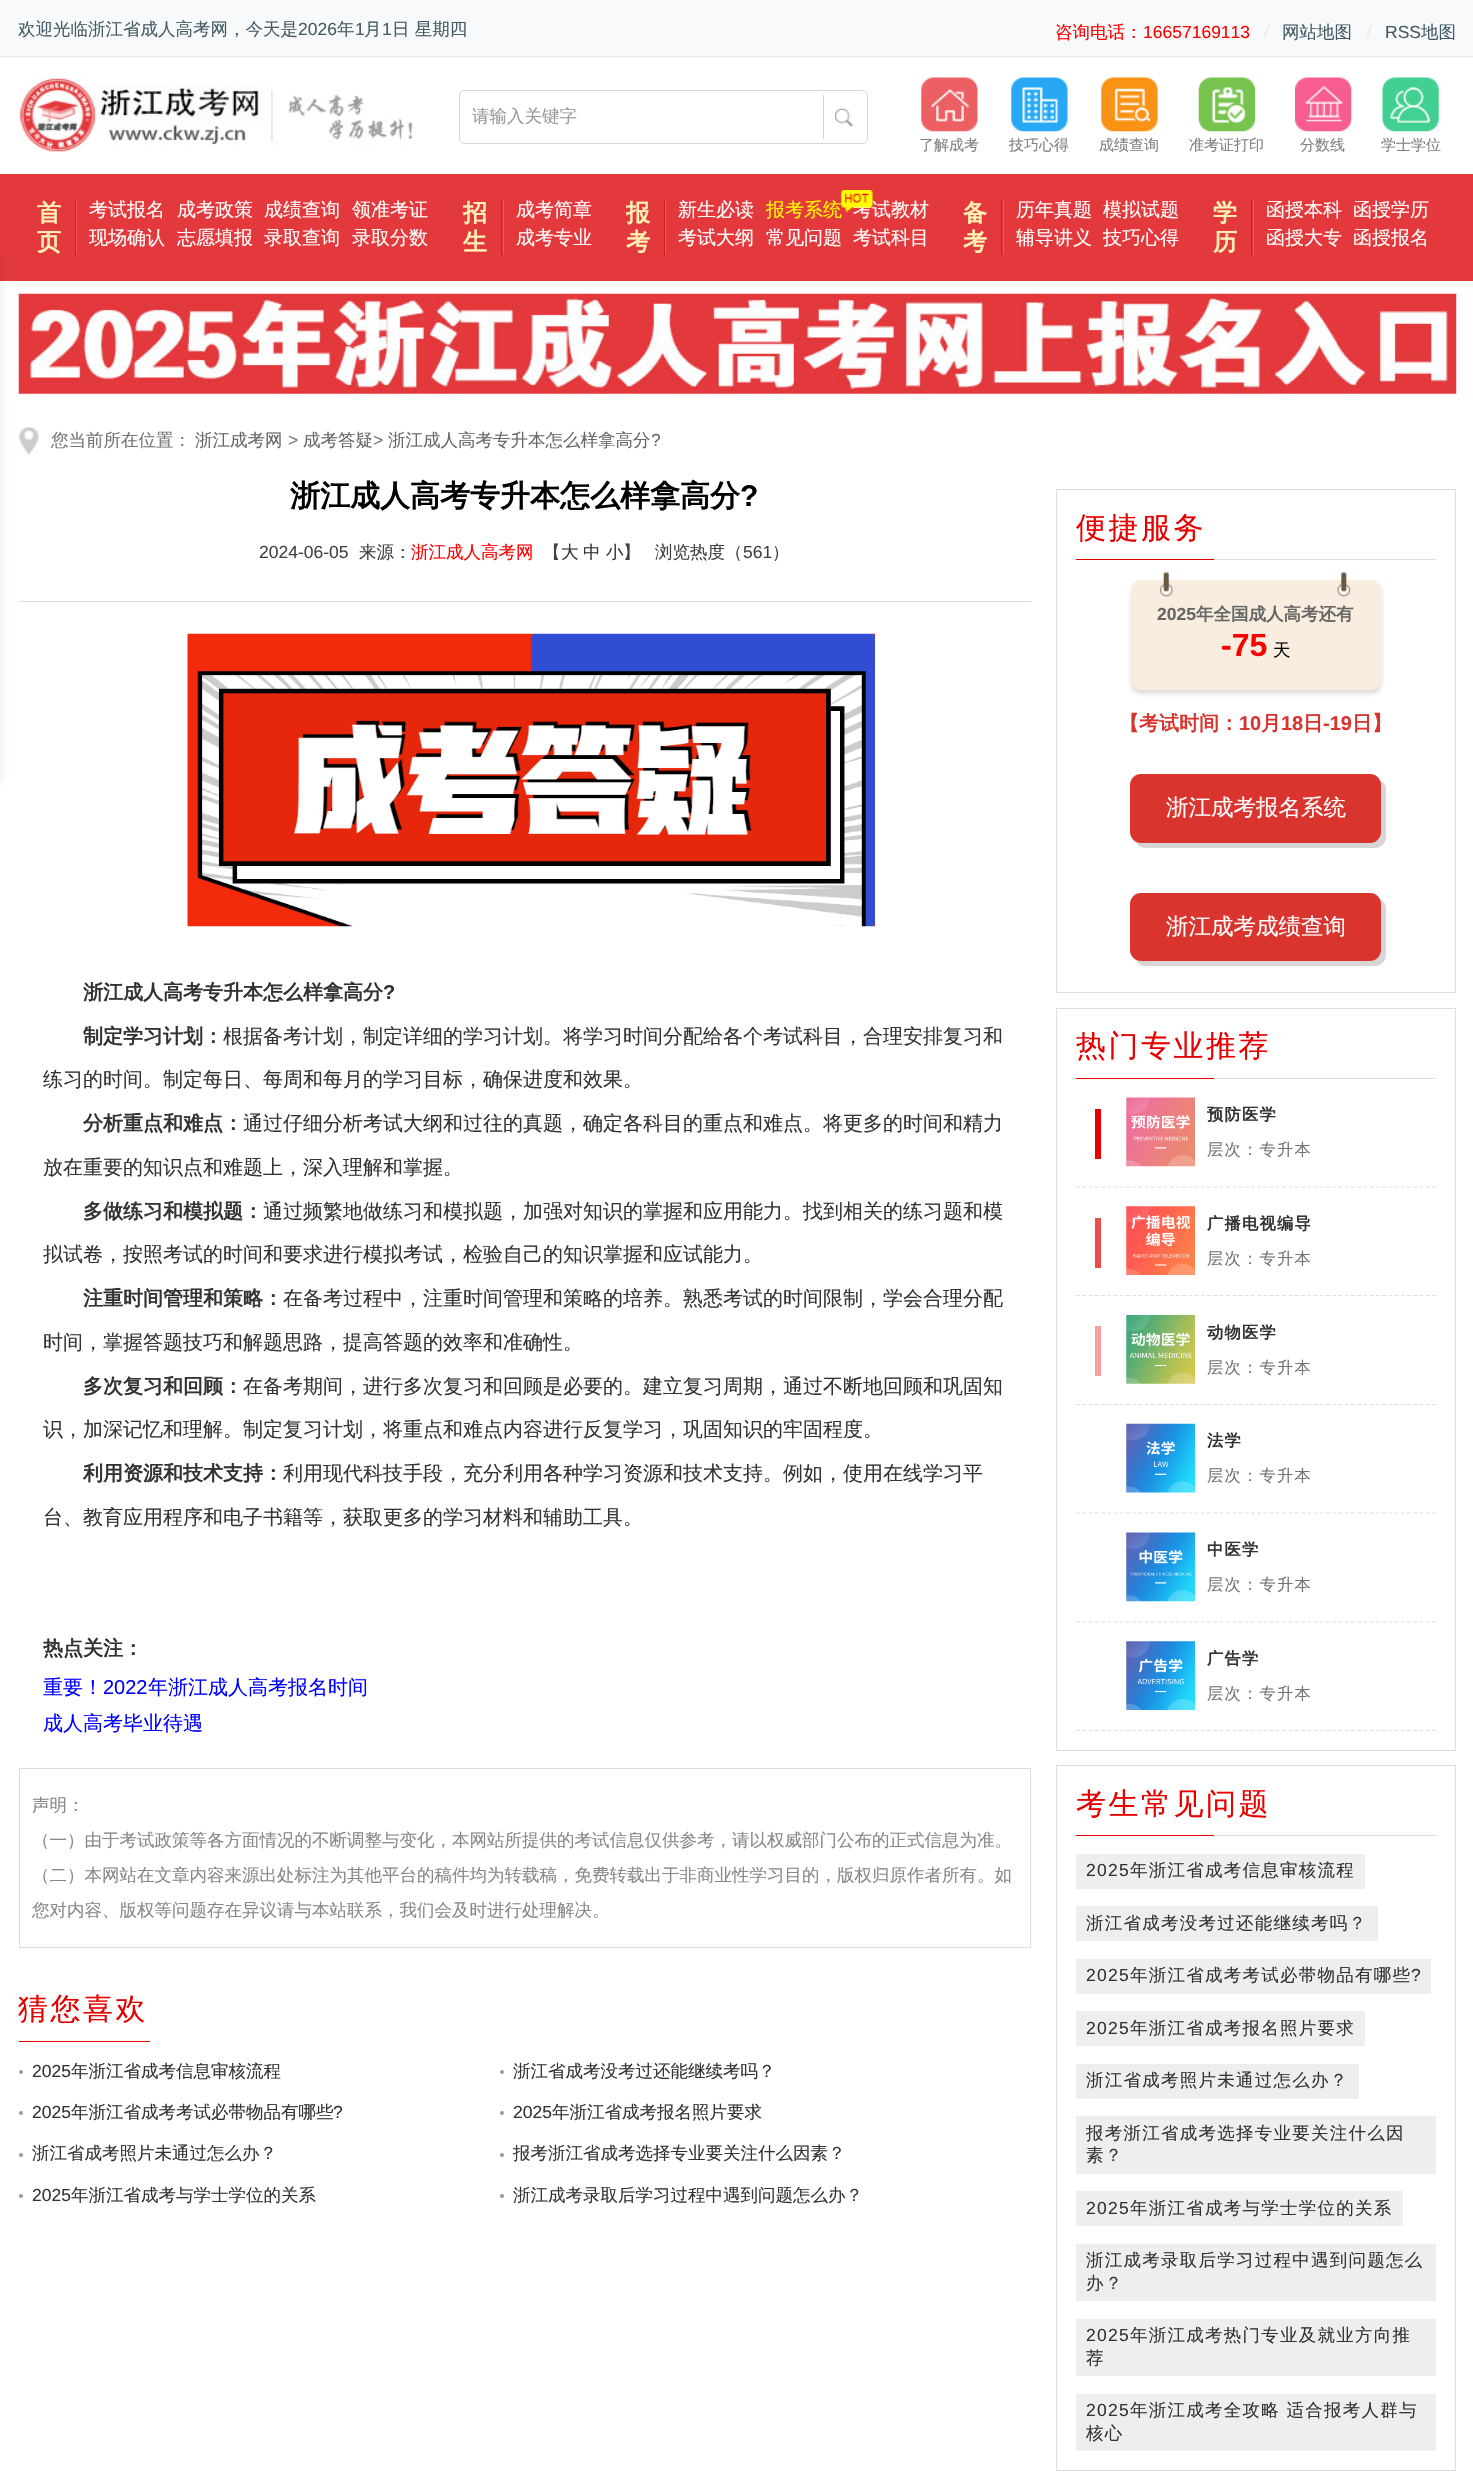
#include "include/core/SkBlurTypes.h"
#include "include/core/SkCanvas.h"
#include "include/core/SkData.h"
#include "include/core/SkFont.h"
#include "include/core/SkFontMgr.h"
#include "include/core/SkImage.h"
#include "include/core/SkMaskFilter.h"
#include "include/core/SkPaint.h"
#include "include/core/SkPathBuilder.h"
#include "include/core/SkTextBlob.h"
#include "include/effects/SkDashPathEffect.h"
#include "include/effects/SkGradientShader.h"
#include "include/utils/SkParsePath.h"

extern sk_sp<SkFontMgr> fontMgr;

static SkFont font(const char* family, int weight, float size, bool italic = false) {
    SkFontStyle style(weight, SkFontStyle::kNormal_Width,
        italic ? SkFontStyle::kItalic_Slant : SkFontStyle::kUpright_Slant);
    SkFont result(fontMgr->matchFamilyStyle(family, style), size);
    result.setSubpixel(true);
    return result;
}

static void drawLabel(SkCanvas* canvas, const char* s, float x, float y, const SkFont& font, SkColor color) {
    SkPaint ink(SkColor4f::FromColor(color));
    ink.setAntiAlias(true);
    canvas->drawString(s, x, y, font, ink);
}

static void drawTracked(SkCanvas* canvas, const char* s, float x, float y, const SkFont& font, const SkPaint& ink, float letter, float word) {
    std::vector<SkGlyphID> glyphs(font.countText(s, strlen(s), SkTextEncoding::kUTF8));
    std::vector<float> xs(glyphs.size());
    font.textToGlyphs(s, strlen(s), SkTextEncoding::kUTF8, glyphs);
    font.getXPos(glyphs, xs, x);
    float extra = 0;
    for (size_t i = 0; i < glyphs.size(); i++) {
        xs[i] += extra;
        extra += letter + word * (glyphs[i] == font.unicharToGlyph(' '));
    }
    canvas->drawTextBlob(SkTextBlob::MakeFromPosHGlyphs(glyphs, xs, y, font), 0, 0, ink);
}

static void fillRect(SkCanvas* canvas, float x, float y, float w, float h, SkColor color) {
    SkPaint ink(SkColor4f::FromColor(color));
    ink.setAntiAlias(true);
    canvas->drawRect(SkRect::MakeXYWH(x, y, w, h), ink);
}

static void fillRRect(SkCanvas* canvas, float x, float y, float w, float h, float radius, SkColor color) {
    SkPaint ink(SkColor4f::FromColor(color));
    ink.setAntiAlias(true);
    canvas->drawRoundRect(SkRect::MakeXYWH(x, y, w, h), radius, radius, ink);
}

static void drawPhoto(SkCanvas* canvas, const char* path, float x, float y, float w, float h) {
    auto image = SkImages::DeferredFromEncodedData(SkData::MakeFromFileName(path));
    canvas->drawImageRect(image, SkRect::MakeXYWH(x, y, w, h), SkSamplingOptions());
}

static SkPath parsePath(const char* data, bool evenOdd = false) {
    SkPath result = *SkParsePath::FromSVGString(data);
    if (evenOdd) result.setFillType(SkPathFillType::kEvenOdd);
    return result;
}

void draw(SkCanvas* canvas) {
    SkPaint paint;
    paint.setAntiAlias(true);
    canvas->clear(0xFFFFFFFF);
    fillRect(canvas, 0, 0, 1473, 58, 0xFFF7F9FA);
    fillRect(canvas, 0, 56, 1473, 1, 0xFFEAEAEA);
    SkFont font1 = font("WenQuanYi Zen Hei", 500, 17.5f);
    drawLabel(canvas, "欢迎光临浙江省成人高考网，今天是", 18, 35, font1, 0xFF445A65);
    SkFont font2 = font("Liberation Sans", 400, 17.5f);
    drawLabel(canvas, "2026", 298, 35, font2, 0xFF445A65);
    drawLabel(canvas, "年", 337, 35, font1, 0xFF445A65);
    drawLabel(canvas, "1", 355, 35, font2, 0xFF445A65);
    drawLabel(canvas, "月", 364, 35, font1, 0xFF445A65);
    drawLabel(canvas, "1", 382, 35, font2, 0xFF445A65);
    drawLabel(canvas, "日 星期四", 392, 35, font1, 0xFF445A65);
    drawLabel(canvas, "咨询电话：", 1055, 38, font1, 0xFFFF0000);
    drawLabel(canvas, "16657169113", 1143, 38, font2, 0xFFFF0000);
    drawPhoto(canvas, "assets/img1.png", 1263, 25, 7, 13);
    drawLabel(canvas, "网站地图", 1282, 38, font1, 0xFF445A65);
    drawPhoto(canvas, "assets/img2.png", 1366, 25, 7, 13);
    drawLabel(canvas, "RSS", 1385, 38, font2, 0xFF445A65);
    drawLabel(canvas, "地图", 1421, 38, font1, 0xFF445A65);
    drawPhoto(canvas, "assets/img3.png", 19, 78, 394, 74);
    paint.setStroke(true);
    paint.setStrokeWidth(1);
    paint.setColor(0xFFD6D6D6);
    canvas->drawRoundRect(SkRect::MakeXYWH(459.5f, 90.5f, 408, 53), 4.5f, 4.5f, paint);
    fillRect(canvas, 823, 95, 1, 44, 0xFFD6D6D6);
    drawLabel(canvas, "请输入关键字", 472, 122, font1, 0xFF999999);
    drawPhoto(canvas, "assets/img4.png", 835, 108, 18, 19);
    drawPhoto(canvas, "assets/img5.png", 921, 77, 57, 55);
    SkFont font3 = font("WenQuanYi Zen Hei", 500, 15);
    drawLabel(canvas, "了解成考", 919, 150, font3, 0xFF808080);
    drawPhoto(canvas, "assets/img6.png", 1011, 77, 57, 55);
    drawLabel(canvas, "技巧心得", 1009, 150, font3, 0xFF808080);
    drawPhoto(canvas, "assets/img7.png", 1101, 77, 57, 55);
    drawLabel(canvas, "成绩查询", 1099, 150, font3, 0xFF808080);
    drawPhoto(canvas, "assets/img8.png", 1198, 77, 57, 55);
    drawLabel(canvas, "准考证打印", 1189, 150, font3, 0xFF808080);
    drawPhoto(canvas, "assets/img9.png", 1295, 77, 57, 55);
    drawLabel(canvas, "分数线", 1300, 150, font3, 0xFF808080);
    drawPhoto(canvas, "assets/img10.png", 1382, 77, 57, 55);
    drawLabel(canvas, "学士学位", 1381, 150, font3, 0xFF808080);
    fillRect(canvas, 0, 174, 1473, 107, 0xFFE4393C);
    fillRect(canvas, 75, 199, 1, 57, 0xFFD71F14);
    SkFont font4 = font("WenQuanYi Zen Hei", 700, 24);
    drawLabel(canvas, "首", 37, 221, font4, 0xFFFFF1B3);
    drawLabel(canvas, "页", 37, 250, font4, 0xFFFFF1B3);
    fillRect(canvas, 76, 199, 1, 55, 0xFFFE4D4A);
    SkFont font5 = font("WenQuanYi Zen Hei", 500, 19);
    drawLabel(canvas, "考试报名", 89, 216, font5, 0xFFFFFFFF);
    drawLabel(canvas, "成考政策", 177, 216, font5, 0xFFFFFFFF);
    drawLabel(canvas, "成绩查询", 264, 216, font5, 0xFFFFFFFF);
    drawLabel(canvas, "领准考证", 352, 216, font5, 0xFFFFFFFF);
    drawLabel(canvas, "现场确认", 89, 244, font5, 0xFFFFFFFF);
    drawLabel(canvas, "志愿填报", 177, 244, font5, 0xFFFFFFFF);
    drawLabel(canvas, "录取查询", 264, 244, font5, 0xFFFFFFFF);
    drawLabel(canvas, "录取分数", 352, 244, font5, 0xFFFFFFFF);
    fillRect(canvas, 501, 199, 1, 57, 0xFFD71F14);
    drawLabel(canvas, "招", 463, 221, font4, 0xFFFFF1B3);
    drawLabel(canvas, "生", 463, 250, font4, 0xFFFFF1B3);
    fillRect(canvas, 503, 199, 1, 55, 0xFFFE4D4A);
    drawLabel(canvas, "成考简章", 516, 216, font5, 0xFFFFFFFF);
    drawLabel(canvas, "成考专业", 516, 244, font5, 0xFFFFFFFF);
    fillRect(canvas, 664, 199, 1, 57, 0xFFD71F14);
    drawLabel(canvas, "报", 626, 221, font4, 0xFFFFF1B3);
    drawLabel(canvas, "考", 626, 250, font4, 0xFFFFF1B3);
    fillRect(canvas, 665, 199, 1, 55, 0xFFFE4D4A);
    drawLabel(canvas, "新生必读", 678, 216, font5, 0xFFFFFFFF);
    drawLabel(canvas, "报考系统", 766, 216, font5, 0xFFFBF901);
    drawLabel(canvas, "考试教材", 853, 216, font5, 0xFFFFFFFF);
    drawPhoto(canvas, "assets/img11.png", 841, 190, 32, 23);
    drawLabel(canvas, "考试大纲", 678, 244, font5, 0xFFFFFFFF);
    drawLabel(canvas, "常见问题", 766, 244, font5, 0xFFFFFFFF);
    drawLabel(canvas, "考试科目", 853, 244, font5, 0xFFFFFFFF);
    fillRect(canvas, 1001, 199, 1, 57, 0xFFD71F14);
    drawLabel(canvas, "备", 963, 221, font4, 0xFFFFF1B3);
    drawLabel(canvas, "考", 963, 250, font4, 0xFFFFF1B3);
    fillRect(canvas, 1003, 199, 1, 55, 0xFFFE4D4A);
    drawLabel(canvas, "历年真题", 1016, 216, font5, 0xFFFFFFFF);
    drawLabel(canvas, "模拟试题", 1103, 216, font5, 0xFFFFFFFF);
    drawLabel(canvas, "辅导讲义", 1016, 244, font5, 0xFFFFFFFF);
    drawLabel(canvas, "技巧心得", 1103, 244, font5, 0xFFFFFFFF);
    fillRect(canvas, 1251, 199, 1, 57, 0xFFD71F14);
    drawLabel(canvas, "学", 1213, 221, font4, 0xFFFFF1B3);
    drawLabel(canvas, "历", 1213, 250, font4, 0xFFFFF1B3);
    fillRect(canvas, 1253, 199, 1, 55, 0xFFFE4D4A);
    drawLabel(canvas, "函授本科", 1266, 216, font5, 0xFFFFFFFF);
    drawLabel(canvas, "函授学历", 1353, 216, font5, 0xFFFFFFFF);
    drawLabel(canvas, "函授大专", 1266, 244, font5, 0xFFFFFFFF);
    drawLabel(canvas, "函授报名", 1353, 244, font5, 0xFFFFFFFF);
    paint.setStroke(false);
    paint.setColor(0x1A000000);
    paint.setMaskFilter(SkMaskFilter::MakeBlur(kNormal_SkBlurStyle, 4));
    canvas->drawRoundRect(SkRect::MakeXYWH(-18, 253, 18, 531), 6, 6, paint);
    paint.setMaskFilter(nullptr);
    drawPhoto(canvas, "assets/img12.png", 18, 293, 1439, 101);
    drawPhoto(canvas, "assets/img13.png", 18, 427, 21, 28);
    drawLabel(canvas, "您当前所在位置：", 51, 446, font1, 0xFF747474);
    drawLabel(canvas, "浙江成考网", 195, 446, font1, 0xFF666666);
    drawLabel(canvas, ">", 288, 446, font2, 0xFF747474);
    drawLabel(canvas, "成考答疑", 303, 446, font1, 0xFF666666);
    drawLabel(canvas, ">", 373, 446, font2, 0xFF747474);
    drawLabel(canvas, "浙江成人高考专升本怎么样拿高分", 388, 446, font1, 0xFF666666);
    drawLabel(canvas, "?", 651, 446, font2, 0xFF666666);
    fillRect(canvas, 19, 601, 1012, 1, 0xFFDDDDDD);
    SkFont font6 = font("WenQuanYi Zen Hei", 700, 30);
    drawLabel(canvas, "浙江成人高考专升本怎么样拿高分", 290, 506, font6, 0xFF000002);
    SkFont font7 = font("Liberation Sans", 700, 30);
    drawLabel(canvas, "?", 740, 506, font7, 0xFF000002);
    drawLabel(canvas, "2024-06-05", 259, 558, font2, 0xFF414141);
    drawLabel(canvas, "来源：", 359, 558, font1, 0xFF414141);
    drawLabel(canvas, "浙江成人高考网", 411, 558, font1, 0xFFFF0000);
    drawLabel(canvas, "【", 543, 558, font1, 0xFF414141);
    drawLabel(canvas, "大", 561, 558, font1, 0xFF333333);
    drawLabel(canvas, "中", 583, 558, font1, 0xFF333333);
    drawLabel(canvas, "小", 606, 558, font1, 0xFF333333);
    drawLabel(canvas, "】", 623, 558, font1, 0xFF414141);
    drawLabel(canvas, "浏览热度（", 655, 558, font1, 0xFF414141);
    drawLabel(canvas, "561", 743, 558, font2, 0xFF414141);
    drawLabel(canvas, "）", 772, 558, font1, 0xFF414141);
    drawPhoto(canvas, "assets/img14.png", 187, 633, 688, 294);
    SkFont font8 = font("WenQuanYi Zen Hei", 700, 20);
    drawLabel(canvas, "浙江成人高考专升本怎么样拿高分", 83, 999, font8, 0xFF333333);
    SkFont font9 = font("Liberation Sans", 700, 20);
    drawLabel(canvas, "?", 383, 999, font9, 0xFF333333);
    drawLabel(canvas, "制定学习计划：", 83, 1043, font8, 0xFF333333);
    SkFont font10 = font("WenQuanYi Zen Hei", 500, 20);
    drawLabel(canvas, "根据备考计划，制定详细的学习计划。将学习时间分配给各个考试科目，合理安排复习和", 223, 1043, font10, 0xFF333333);
    drawLabel(canvas, "练习的时间。制定每日、每周和每月的学习目标，确保进度和效果。", 43, 1086, font10, 0xFF333333);
    drawLabel(canvas, "分析重点和难点：", 83, 1130, font8, 0xFF333333);
    drawLabel(canvas, "通过仔细分析考试大纲和过往的真题，确定各科目的重点和难点。将更多的时间和精力", 243, 1130, font10, 0xFF333333);
    drawLabel(canvas, "放在重要的知识点和难题上，深入理解和掌握。", 43, 1174, font10, 0xFF333333);
    drawLabel(canvas, "多做练习和模拟题：", 83, 1218, font8, 0xFF333333);
    drawLabel(canvas, "通过频繁地做练习和模拟题，加强对知识的掌握和应用能力。找到相关的练习题和模", 263, 1218, font10, 0xFF333333);
    drawLabel(canvas, "拟试卷，按照考试的时间和要求进行模拟考试，检验自己的知识掌握和应试能力。", 43, 1261, font10, 0xFF333333);
    drawLabel(canvas, "注重时间管理和策略：", 83, 1305, font8, 0xFF333333);
    drawLabel(canvas, "在备考过程中，注重时间管理和策略的培养。熟悉考试的时间限制，学会合理分配", 283, 1305, font10, 0xFF333333);
    drawLabel(canvas, "时间，掌握答题技巧和解题思路，提高答题的效率和准确性。", 43, 1349, font10, 0xFF333333);
    drawLabel(canvas, "多次复习和回顾：", 83, 1393, font8, 0xFF333333);
    drawLabel(canvas, "在备考期间，进行多次复习和回顾是必要的。建立复习周期，通过不断地回顾和巩固知", 243, 1393, font10, 0xFF333333);
    drawLabel(canvas, "识，加深记忆和理解。制定复习计划，将重点和难点内容进行反复学习，巩固知识的牢固程度。", 43, 1436, font10, 0xFF333333);
    drawLabel(canvas, "利用资源和技术支持：", 83, 1480, font8, 0xFF333333);
    drawLabel(canvas, "利用现代科技手段，充分利用各种学习资源和技术支持。例如，使用在线学习平", 283, 1480, font10, 0xFF333333);
    drawLabel(canvas, "台、教育应用程序和电子书籍等，获取更多的学习材料和辅助工具。", 43, 1524, font10, 0xFF333333);
    drawLabel(canvas, "热点关注：", 43, 1655, font8, 0xFF333333);
    drawLabel(canvas, "重要！", 43, 1694, font10, 0xFF0000FF);
    SkFont font11 = font("Liberation Sans", 400, 20);
    drawLabel(canvas, "2022", 103, 1694, font11, 0xFF0000FF);
    drawLabel(canvas, "年浙江成人高考报名时间", 148, 1694, font10, 0xFF0000FF);
    drawLabel(canvas, "成人高考毕业待遇", 43, 1730, font10, 0xFF0000FF);
    paint.setStroke(true);
    paint.setColor(0xFFDDDDDD);
    canvas->drawRect(SkRect::MakeXYWH(19.5f, 1768.5f, 1011, 179), paint);
    drawLabel(canvas, "声明：", 32, 1811, font1, 0xFF888888);
    drawLabel(canvas, "（一）由于考试政策等各方面情况的不断调整与变化，本网站所提供的考试信息仅供参考，请以权威部门公布的正式信息为准。", 32, 1846, font1, 0xFF888888);
    drawLabel(canvas, "（二）本网站在文章内容来源出处标注为其他平台的稿件均为转载稿，免费转载出于非商业性学习目的，版权归原作者所有。如", 32, 1881, font1, 0xFF888888);
    drawLabel(canvas, "您对内容、版权等问题存在异议请与本站联系，我们会及时进行处理解决。", 32, 1916, font1, 0xFF888888);
    fillRect(canvas, 19, 2041, 131, 1, 0xFFE60000);
    SkFont font12 = font("WenQuanYi Zen Hei", 500, 30);
    paint.setStroke(false);
    paint.setColor(0xFFE60000);
    drawTracked(canvas, "猜您喜欢", 18, 2019, font12, paint, 2.5f, 0);
    paint.setColor(0xFF999999);
    canvas->drawCircle(21, 2072, 2, paint);
    drawLabel(canvas, "2025", 32, 2077, font2, 0xFF333333);
    drawLabel(canvas, "年浙江省成考信息审核流程", 71, 2077, font1, 0xFF333333);
    canvas->drawCircle(502, 2072, 2, paint);
    drawLabel(canvas, "浙江省成考没考过还能继续考吗？", 513, 2077, font1, 0xFF333333);
    canvas->drawCircle(21, 2113, 2, paint);
    drawLabel(canvas, "2025", 32, 2118, font2, 0xFF333333);
    drawLabel(canvas, "年浙江省成考考试必带物品有哪些", 71, 2118, font1, 0xFF333333);
    drawLabel(canvas, "?", 333, 2118, font2, 0xFF333333);
    canvas->drawCircle(502, 2113, 2, paint);
    drawLabel(canvas, "2025", 513, 2118, font2, 0xFF333333);
    drawLabel(canvas, "年浙江省成考报名照片要求", 552, 2118, font1, 0xFF333333);
    canvas->drawCircle(21, 2155, 2, paint);
    drawLabel(canvas, "浙江省成考照片未通过怎么办？", 32, 2159, font1, 0xFF333333);
    canvas->drawCircle(502, 2155, 2, paint);
    drawLabel(canvas, "报考浙江省成考选择专业要关注什么因素？", 513, 2159, font1, 0xFF333333);
    canvas->drawCircle(21, 2196, 2, paint);
    drawLabel(canvas, "2025", 32, 2201, font2, 0xFF333333);
    drawLabel(canvas, "年浙江省成考与学士学位的关系", 71, 2201, font1, 0xFF333333);
    canvas->drawCircle(502, 2196, 2, paint);
    drawLabel(canvas, "浙江成考录取后学习过程中遇到问题怎么办？", 513, 2201, font1, 0xFF333333);
    paint.setStroke(true);
    paint.setColor(0xFFDFDEDE);
    canvas->drawRect(SkRect::MakeXYWH(1056.5f, 489.5f, 399, 503), paint);
    fillRect(canvas, 1214, 559, 222, 1, 0xFFDEDEDE);
    fillRect(canvas, 1076, 559, 138, 1, 0xFFE60000);
    paint.setStroke(false);
    paint.setColor(0xFFE60000);
    drawTracked(canvas, "便捷服务", 1076, 538, font12, paint, 2.5f, 0);
    drawPhoto(canvas, "assets/img15.png", 1128, 572, 256, 125);
    SkFont font13 = font("Liberation Sans", 700, 17.5f);
    drawLabel(canvas, "2025", 1157, 620, font13, 0xFF666666);
    SkFont font14 = font("WenQuanYi Zen Hei", 700, 17.5f);
    drawLabel(canvas, "年全国成人高考还有", 1196, 620, font14, 0xFF666666);
    SkFont font15 = font("Liberation Sans", 700, 32);
    drawLabel(canvas, "-75", 1221, 656, font15, 0xFFFF0000);
    drawLabel(canvas, "天", 1273, 656, font1, 0xFF000002);
    drawLabel(canvas, "【考试时间：", 1119, 730, font8, 0xFFD9342E);
    drawLabel(canvas, "10", 1239, 730, font9, 0xFFD9342E);
    drawLabel(canvas, "月", 1261, 730, font8, 0xFFD9342E);
    drawLabel(canvas, "18", 1281, 730, font9, 0xFFD9342E);
    drawLabel(canvas, "日", 1303, 730, font8, 0xFFD9342E);
    drawLabel(canvas, "-19", 1323, 730, font9, 0xFFD9342E);
    drawLabel(canvas, "日】", 1352, 730, font8, 0xFFD9342E);
    paint.setColor(0xFFD7D5D5);
    canvas->drawPath(parsePath("M1136 841C1137 845 1141 848 1146 848H1375C1381 848 1386 843 1386 837V790C1386 786 1384 782 1380 780C1381 782 1381 783 1381 785V831C1381 837 1376 842 1370 842H1141C1139 842 1137 842 1136 841Z"), paint);
    fillRRect(canvas, 1130, 774, 251, 69, 11, 0xFFD9342E);
    SkFont font16 = font("WenQuanYi Zen Hei", 500, 22.5f);
    drawLabel(canvas, "浙江成考报名系统", 1166, 815, font16, 0xFFFFFFFF);
    canvas->drawPath(parsePath("M1136 960C1138 964 1142 966 1146 966H1375C1381 966 1386 961 1386 955V909C1386 905 1384 901 1380 899L1381 904V950C1381 956 1376 961 1370 961H1141C1139 961 1138 961 1136 960Z"), paint);
    fillRRect(canvas, 1130, 893, 251, 68, 11, 0xFFD9342E);
    drawLabel(canvas, "浙江成考成绩查询", 1166, 934, font16, 0xFFFFFFFF);
    paint.setStroke(true);
    paint.setColor(0xFFDFDEDE);
    canvas->drawRect(SkRect::MakeXYWH(1056.5f, 1008.5f, 399, 742), paint);
    fillRect(canvas, 1214, 1078, 222, 1, 0xFFDEDEDE);
    paint.setStroke(false);
    paint.setColor(0xFFE60000);
    drawTracked(canvas, "热门专业推荐", 1076, 1056, font12, paint, 2.5f, 0);
    fillRect(canvas, 1076, 1078, 138, 1, 0xFFE60000);
    paint.setStroke(true);
    paint.setStrokeWidth(1.2f);
    paint.setColor(0xFFDEDEDE);
    paint.setPathEffect(SkDashPathEffect::Make({{3.75f, 2.5f}}, 0));
    canvas->drawPath(parsePath("M1076 1187H1436"), paint);
    paint.setPathEffect(nullptr);
    fillRect(canvas, 1095, 1109, 6, 50, 0xFFE60000);
    drawPhoto(canvas, "assets/img16.png", 1126, 1097, 69, 70);
    SkFont font17 = font("WenQuanYi Zen Hei", 700, 16.25f);
    paint.setStroke(false);
    paint.setColor(0xFF333333);
    drawTracked(canvas, "预防医学", 1207, 1120, font17, paint, 1.25f, 0);
    SkFont font18 = font("WenQuanYi Zen Hei", 500, 16.25f);
    paint.setColor(0xFF747474);
    drawTracked(canvas, "层次：专升本", 1207, 1155, font18, paint, 1.25f, 0);
    paint.setStroke(true);
    paint.setColor(0xFFDEDEDE);
    paint.setPathEffect(SkDashPathEffect::Make({{3.75f, 2.5f}}, 0));
    canvas->drawPath(parsePath("M1076 1295.5H1436"), paint);
    paint.setPathEffect(nullptr);
    fillRect(canvas, 1095, 1218, 6, 50, 0xFFED4A4A);
    drawPhoto(canvas, "assets/img17.png", 1126, 1206, 69, 69);
    paint.setStroke(false);
    paint.setColor(0xFF333333);
    drawTracked(canvas, "广播电视编导", 1207, 1229, font17, paint, 1.25f, 0);
    paint.setColor(0xFF747474);
    drawTracked(canvas, "层次：专升本", 1207, 1264, font18, paint, 1.25f, 0);
    paint.setStroke(true);
    paint.setColor(0xFFDEDEDE);
    paint.setPathEffect(SkDashPathEffect::Make({{3.75f, 2.5f}}, 0));
    canvas->drawPath(parsePath("M1076 1404.5H1436"), paint);
    paint.setPathEffect(nullptr);
    fillRect(canvas, 1095, 1326, 6, 50, 0xFFF6A1A1);
    drawPhoto(canvas, "assets/img18.png", 1126, 1315, 69, 69);
    paint.setStroke(false);
    paint.setColor(0xFF333333);
    drawTracked(canvas, "动物医学", 1207, 1338, font17, paint, 1.25f, 0);
    paint.setColor(0xFF747474);
    drawTracked(canvas, "层次：专升本", 1207, 1373, font18, paint, 1.25f, 0);
    paint.setStroke(true);
    paint.setColor(0xFFDEDEDE);
    paint.setPathEffect(SkDashPathEffect::Make({{3.75f, 2.5f}}, 0));
    canvas->drawPath(parsePath("M1076 1513H1436"), paint);
    paint.setPathEffect(nullptr);
    drawPhoto(canvas, "assets/img19.png", 1126, 1423, 69, 70);
    paint.setStroke(false);
    paint.setColor(0xFF333333);
    drawTracked(canvas, "法学", 1207, 1446, font17, paint, 1.25f, 0);
    paint.setColor(0xFF747474);
    drawTracked(canvas, "层次：专升本", 1207, 1481, font18, paint, 1.25f, 0);
    paint.setStroke(true);
    paint.setColor(0xFFDEDEDE);
    paint.setPathEffect(SkDashPathEffect::Make({{3.75f, 2.5f}}, 0));
    canvas->drawPath(parsePath("M1076 1622H1436"), paint);
    paint.setPathEffect(nullptr);
    drawPhoto(canvas, "assets/img20.png", 1126, 1532, 69, 70);
    paint.setStroke(false);
    paint.setColor(0xFF333333);
    drawTracked(canvas, "中医学", 1207, 1555, font17, paint, 1.25f, 0);
    paint.setColor(0xFF747474);
    drawTracked(canvas, "层次：专升本", 1207, 1590, font18, paint, 1.25f, 0);
    paint.setStroke(true);
    paint.setColor(0xFFDEDEDE);
    paint.setPathEffect(SkDashPathEffect::Make({{3.75f, 2.5f}}, 0));
    canvas->drawPath(parsePath("M1076 1730.5H1436"), paint);
    paint.setPathEffect(nullptr);
    drawPhoto(canvas, "assets/img21.png", 1126, 1641, 69, 69);
    paint.setStroke(false);
    paint.setColor(0xFF333333);
    drawTracked(canvas, "广告学", 1207, 1664, font17, paint, 1.25f, 0);
    paint.setColor(0xFF747474);
    drawTracked(canvas, "层次：专升本", 1207, 1699, font18, paint, 1.25f, 0);
    paint.setStroke(true);
    paint.setStrokeWidth(1);
    paint.setColor(0xFFDFDEDE);
    canvas->drawRect(SkRect::MakeXYWH(1056.5f, 1765.5f, 399, 705), paint);
    fillRect(canvas, 1214, 1835, 222, 1, 0xFFDEDEDE);
    paint.setStroke(false);
    paint.setColor(0xFFE60000);
    drawTracked(canvas, "考生常见问题", 1076, 1814, font12, paint, 2.5f, 0);
    fillRect(canvas, 1076, 1835, 138, 1, 0xFFE60000);
    fillRect(canvas, 1076, 1854, 289, 35, 0xFFEEEEEE);
    paint.setColor(0xFF333333);
    drawTracked(canvas, "2025", 1086, 1876, font2, paint, 1.25f, 0);
    drawTracked(canvas, "年浙江省成考信息审核流程", 1130, 1876, font1, paint, 1.25f, 0);
    fillRect(canvas, 1076, 1906, 302, 35, 0xFFEEEEEE);
    drawTracked(canvas, "浙江省成考没考过还能继续考吗？", 1086, 1929, font1, paint, 1.25f, 0);
    fillRect(canvas, 1076, 1959, 355, 35, 0xFFEEEEEE);
    drawTracked(canvas, "2025", 1086, 1981, font2, paint, 1.25f, 0);
    drawTracked(canvas, "年浙江省成考考试必带物品有哪些", 1130, 1981, font1, paint, 1.25f, 0);
    drawTracked(canvas, "?", 1411, 1981, font2, paint, 1.25f, 0);
    fillRect(canvas, 1076, 2011, 289, 35, 0xFFEEEEEE);
    drawTracked(canvas, "2025", 1086, 2034, font2, paint, 1.25f, 0);
    drawTracked(canvas, "年浙江省成考报名照片要求", 1130, 2034, font1, paint, 1.25f, 0);
    fillRect(canvas, 1076, 2064, 283, 35, 0xFFEEEEEE);
    drawTracked(canvas, "浙江省成考照片未通过怎么办？", 1086, 2086, font1, paint, 1.25f, 0);
    fillRect(canvas, 1076, 2116, 360, 58, 0xFFEEEEEE);
    drawTracked(canvas, "报考浙江省成考选择专业要关注什么因", 1086, 2139, font1, paint, 1.25f, 0);
    drawTracked(canvas, "素？", 1086, 2161, font1, paint, 1.25f, 0);
    fillRect(canvas, 1076, 2191, 327, 35, 0xFFEEEEEE);
    drawTracked(canvas, "2025", 1086, 2214, font2, paint, 1.25f, 0);
    drawTracked(canvas, "年浙江省成考与学士学位的关系", 1130, 2214, font1, paint, 1.25f, 0);
    fillRect(canvas, 1076, 2244, 360, 57, 0xFFEEEEEE);
    drawTracked(canvas, "浙江成考录取后学习过程中遇到问题怎么", 1086, 2266, font1, paint, 1.25f, 0);
    drawTracked(canvas, "办？", 1086, 2289, font1, paint, 1.25f, 0);
    fillRect(canvas, 1076, 2319, 360, 57, 0xFFEEEEEE);
    drawTracked(canvas, "2025", 1086, 2341, font2, paint, 1.25f, 0);
    drawTracked(canvas, "年浙江成考热门专业及就业方向推", 1130, 2341, font1, paint, 1.25f, 0);
    drawTracked(canvas, "荐", 1086, 2364, font1, paint, 1.25f, 0);
    fillRect(canvas, 1076, 2394, 360, 57, 0xFFEEEEEE);
    drawTracked(canvas, "2025", 1086, 2416, font2, paint, 1.25f, 0);
    drawTracked(canvas, "年浙江成考全攻略 适合报考人群与", 1130, 2416, font1, paint, 1.25f, 0);
    drawTracked(canvas, "核心", 1086, 2439, font1, paint, 1.25f, 0);
}
